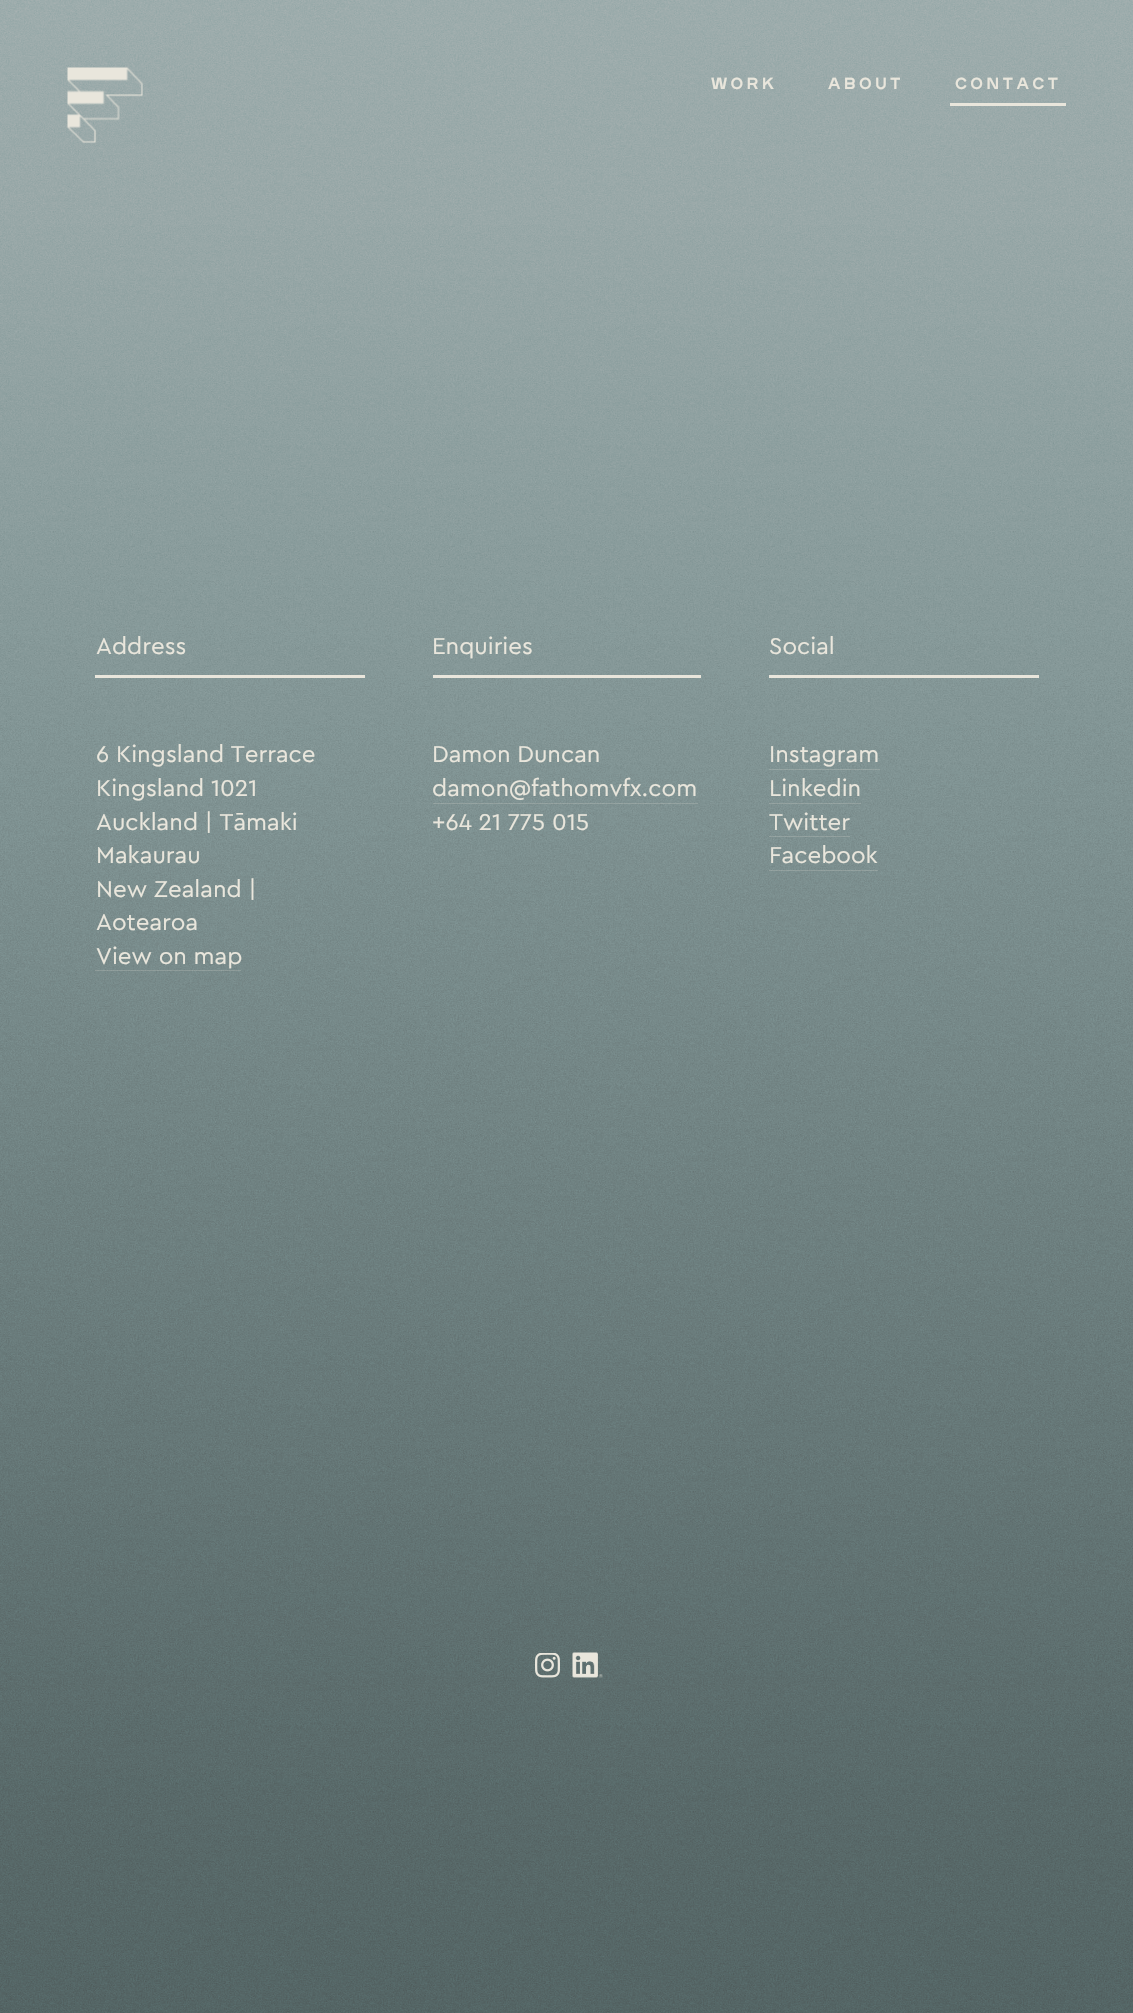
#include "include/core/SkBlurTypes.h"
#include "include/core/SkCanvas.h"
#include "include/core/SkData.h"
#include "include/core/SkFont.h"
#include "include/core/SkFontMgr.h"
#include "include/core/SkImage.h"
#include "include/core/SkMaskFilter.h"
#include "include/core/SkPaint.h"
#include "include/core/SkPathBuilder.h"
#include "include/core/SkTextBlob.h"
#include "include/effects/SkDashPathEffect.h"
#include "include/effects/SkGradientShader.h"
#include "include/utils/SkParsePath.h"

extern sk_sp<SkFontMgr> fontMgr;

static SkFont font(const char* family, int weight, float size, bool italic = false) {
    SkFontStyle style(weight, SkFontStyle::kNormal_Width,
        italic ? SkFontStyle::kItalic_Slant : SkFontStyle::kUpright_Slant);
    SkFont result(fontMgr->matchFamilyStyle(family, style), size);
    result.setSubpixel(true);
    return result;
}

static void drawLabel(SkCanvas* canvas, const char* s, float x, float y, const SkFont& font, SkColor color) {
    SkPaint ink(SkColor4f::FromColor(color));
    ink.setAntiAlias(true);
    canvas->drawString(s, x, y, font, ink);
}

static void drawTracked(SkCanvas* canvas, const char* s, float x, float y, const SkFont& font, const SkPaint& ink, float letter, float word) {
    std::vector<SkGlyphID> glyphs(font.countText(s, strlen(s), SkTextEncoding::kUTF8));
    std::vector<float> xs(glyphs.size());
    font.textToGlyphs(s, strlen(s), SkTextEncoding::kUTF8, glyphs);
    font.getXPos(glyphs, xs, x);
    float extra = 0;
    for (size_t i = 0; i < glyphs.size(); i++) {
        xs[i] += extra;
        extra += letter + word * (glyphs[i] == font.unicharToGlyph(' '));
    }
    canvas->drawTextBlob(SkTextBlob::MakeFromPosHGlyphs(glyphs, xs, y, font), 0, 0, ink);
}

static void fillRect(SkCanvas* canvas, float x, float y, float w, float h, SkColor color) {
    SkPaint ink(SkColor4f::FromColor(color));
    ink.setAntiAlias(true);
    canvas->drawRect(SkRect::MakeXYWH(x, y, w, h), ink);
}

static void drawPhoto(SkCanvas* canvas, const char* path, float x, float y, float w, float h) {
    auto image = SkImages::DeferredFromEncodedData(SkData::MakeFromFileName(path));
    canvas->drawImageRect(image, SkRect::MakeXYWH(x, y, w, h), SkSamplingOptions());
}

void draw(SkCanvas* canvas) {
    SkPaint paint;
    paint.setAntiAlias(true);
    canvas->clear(0xFFFFFFFF);
    drawPhoto(canvas, "assets/img1.png", 0, 0, 1133, 2013);
    drawPhoto(canvas, "assets/img2.png", 67, 67, 76, 76);
    SkFont font1 = font("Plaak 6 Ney", 700, 16);
    paint.setColor(0xFFE9E6DC);
    drawTracked(canvas, "WORK", 711, 89, font1, paint, 3.25f, 0);
    drawTracked(canvas, "ABOUT", 828, 89, font1, paint, 3.25f, 0);
    drawTracked(canvas, "CONTACT", 955, 89, font1, paint, 3.25f, 0);
    fillRect(canvas, 950, 103, 116, 3, 0xFFE9E6DC);
    fillRect(canvas, 95, 675, 270, 3, 0xFFE9E6DC);
    SkFont font2 = font("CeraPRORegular", 400, 24);
    drawLabel(canvas, "Address", 96, 654, font2, 0xFFE9E6DC);
    drawLabel(canvas, "6 Kingsland Terrace", 96, 762, font2, 0xFFE9E6DC);
    drawLabel(canvas, "Kingsland 1021", 96, 796, font2, 0xFFE9E6DC);
    drawLabel(canvas, "Auckland | Tāmaki", 96, 830, font2, 0xFFE9E6DC);
    drawLabel(canvas, "Makaurau", 96, 863, font2, 0xFFE9E6DC);
    drawLabel(canvas, "New Zealand |", 96, 897, font2, 0xFFE9E6DC);
    drawLabel(canvas, "Aotearoa", 96, 930, font2, 0xFFE9E6DC);
    drawLabel(canvas, "View on map", 96, 964, font2, 0xFFE9E6DC);
    fillRect(canvas, 95, 970, 146, 1, 0x33E9E6DC);
    fillRect(canvas, 433, 675, 268, 3, 0xFFE9E6DC);
    drawLabel(canvas, "Enquiries", 432, 654, font2, 0xFFE9E6DC);
    drawLabel(canvas, "Damon Duncan", 432, 762, font2, 0xFFE9E6DC);
    drawLabel(canvas, "damon@fathomvfx.com", 432, 796, font2, 0xFFE9E6DC);
    fillRect(canvas, 433, 803, 265, 1, 0x33E9E6DC);
    drawLabel(canvas, "+64 21 775 015", 432, 830, font2, 0xFFE9E6DC);
    fillRect(canvas, 769, 675, 270, 3, 0xFFE9E6DC);
    drawLabel(canvas, "Social", 769, 654, font2, 0xFFE9E6DC);
    drawLabel(canvas, "Instagram", 769, 762, font2, 0xFFE9E6DC);
    fillRect(canvas, 769, 769, 111, 1, 0x33E9E6DC);
    drawLabel(canvas, "Linkedin", 769, 796, font2, 0xFFE9E6DC);
    fillRect(canvas, 769, 803, 92, 1, 0x33E9E6DC);
    drawLabel(canvas, "Twitter", 769, 830, font2, 0xFFE9E6DC);
    fillRect(canvas, 769, 836, 81, 1, 0x33E9E6DC);
    drawLabel(canvas, "Facebook", 769, 863, font2, 0xFFE9E6DC);
    fillRect(canvas, 769, 870, 109, 1, 0x33E9E6DC);
    drawPhoto(canvas, "assets/img3.png", 535, 1653, 25, 25);
    drawPhoto(canvas, "assets/img4.png", 572, 1652, 31, 26);
}
